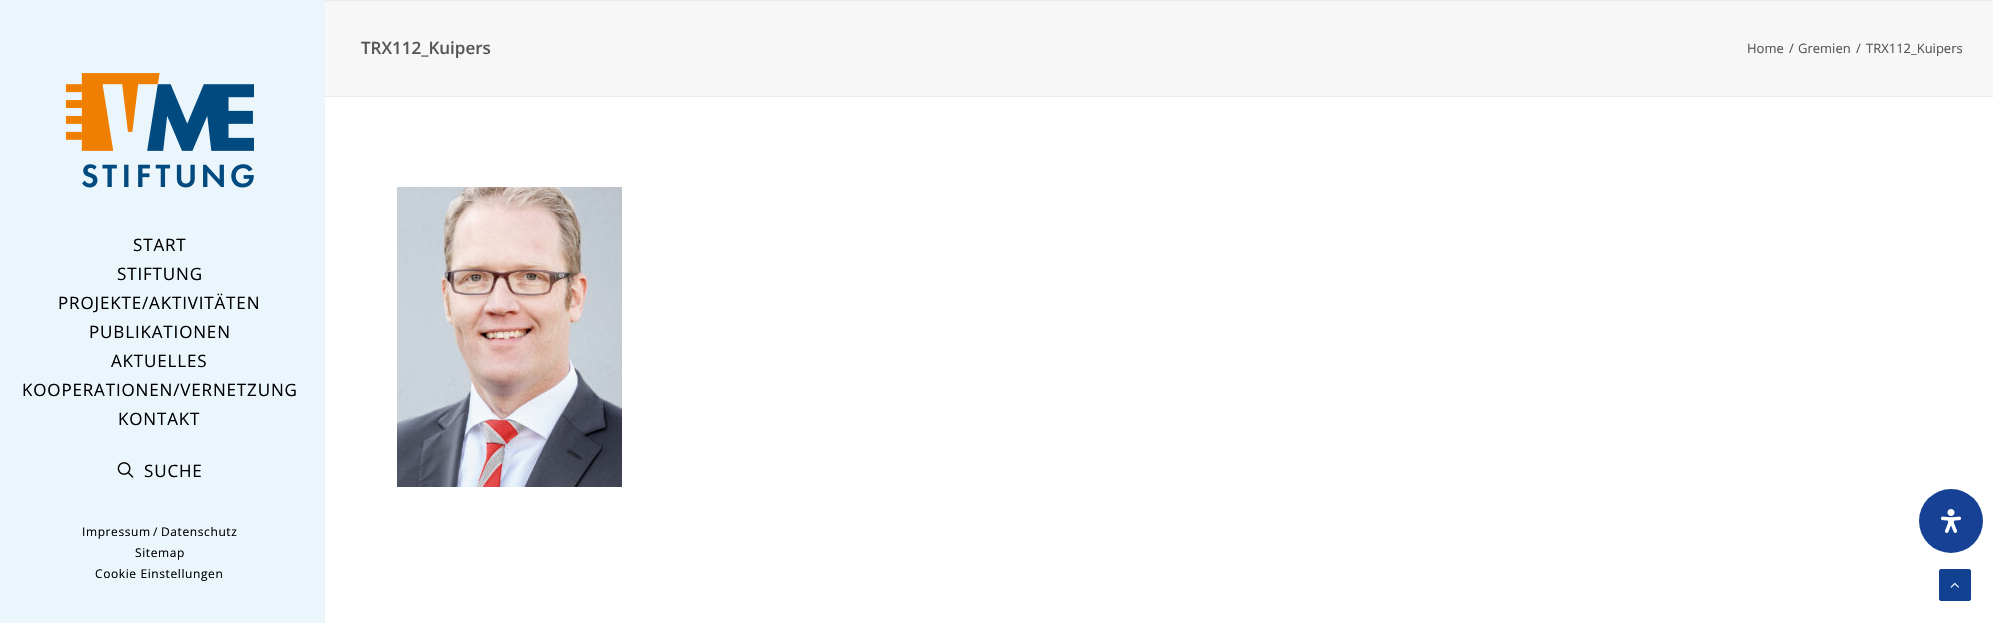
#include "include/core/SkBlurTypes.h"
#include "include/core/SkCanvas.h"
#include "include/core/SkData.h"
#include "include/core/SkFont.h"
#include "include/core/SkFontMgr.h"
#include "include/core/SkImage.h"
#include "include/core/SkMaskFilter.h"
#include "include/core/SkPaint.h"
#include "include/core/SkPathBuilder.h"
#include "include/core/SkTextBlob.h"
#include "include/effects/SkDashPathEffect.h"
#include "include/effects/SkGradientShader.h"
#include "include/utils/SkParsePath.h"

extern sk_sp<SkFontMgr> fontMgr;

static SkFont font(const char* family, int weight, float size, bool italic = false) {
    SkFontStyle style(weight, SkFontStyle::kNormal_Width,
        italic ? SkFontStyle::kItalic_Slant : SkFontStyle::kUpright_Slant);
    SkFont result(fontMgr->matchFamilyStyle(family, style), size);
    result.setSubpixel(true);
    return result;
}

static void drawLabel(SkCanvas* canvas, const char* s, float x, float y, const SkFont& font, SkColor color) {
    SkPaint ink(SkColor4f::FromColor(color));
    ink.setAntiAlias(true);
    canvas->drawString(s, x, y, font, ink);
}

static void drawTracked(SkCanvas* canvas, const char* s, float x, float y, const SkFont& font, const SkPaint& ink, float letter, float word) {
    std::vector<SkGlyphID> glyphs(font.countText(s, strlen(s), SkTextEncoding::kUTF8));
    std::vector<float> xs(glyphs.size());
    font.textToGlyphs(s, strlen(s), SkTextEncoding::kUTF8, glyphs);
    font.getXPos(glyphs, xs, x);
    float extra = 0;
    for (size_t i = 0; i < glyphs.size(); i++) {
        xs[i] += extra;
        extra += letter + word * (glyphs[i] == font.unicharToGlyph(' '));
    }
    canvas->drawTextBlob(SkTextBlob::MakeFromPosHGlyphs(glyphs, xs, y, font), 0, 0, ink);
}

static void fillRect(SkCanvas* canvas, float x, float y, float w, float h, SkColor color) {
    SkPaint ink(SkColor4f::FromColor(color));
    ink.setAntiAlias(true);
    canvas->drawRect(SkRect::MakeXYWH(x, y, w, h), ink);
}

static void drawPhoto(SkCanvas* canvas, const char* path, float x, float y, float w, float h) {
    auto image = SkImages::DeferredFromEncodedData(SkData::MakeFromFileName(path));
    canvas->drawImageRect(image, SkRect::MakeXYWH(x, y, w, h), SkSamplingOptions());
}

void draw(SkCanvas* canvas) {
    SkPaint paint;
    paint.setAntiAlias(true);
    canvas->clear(0xFFFFFFFF);
    fillRect(canvas, 325, 1, 1668, 95, 0xFFF7F7F7);
    fillRect(canvas, 325, 0, 1668, 1, 0xFFEAEAEA);
    fillRect(canvas, 325, 96, 1668, 1, 0xFFEAEAEA);
    SkFont font1 = font("Open Sans", 600, 17);
    drawLabel(canvas, "TRX112_Kuipers", 361, 54, font1, 0xFF565656);
    SkFont font2 = font("Open Sans", 400, 13);
    drawLabel(canvas, "Home", 1747, 53, font2, 0xFF565656);
    drawLabel(canvas, "/", 1789, 53, font2, 0xFF565656);
    drawLabel(canvas, "Gremien", 1798, 53, font2, 0xFF565656);
    drawLabel(canvas, "/", 1856, 53, font2, 0xFF565656);
    drawLabel(canvas, "TRX112_Kuipers", 1866, 53, font2, 0xFF565656);
    drawPhoto(canvas, "assets/img1.png", 397, 187, 225, 300);
    fillRect(canvas, 0, 0, 325, 623, 0xFFEBF6FC);
    drawPhoto(canvas, "assets/img2.png", 65, 73, 189, 115);
    SkFont font3 = font("Open Sans", 400, 17);
    paint.setColor(0xFF000000);
    drawTracked(canvas, "START", 133, 251, font3, paint, 0.85f, 0);
    drawTracked(canvas, "STIFTUNG", 117, 280, font3, paint, 0.85f, 0);
    drawTracked(canvas, "PROJEKTE/AKTIVITÄTEN", 58, 309, font3, paint, 0.85f, 0);
    drawTracked(canvas, "PUBLIKATIONEN", 89, 338, font3, paint, 0.85f, 0);
    drawTracked(canvas, "AKTUELLES", 111, 367, font3, paint, 0.85f, 0);
    drawTracked(canvas, "KOOPERATIONEN/VERNETZUNG", 22, 396, font3, paint, 0.85f, 0);
    drawTracked(canvas, "KONTAKT", 118, 425, font3, paint, 0.85f, 0);
    drawPhoto(canvas, "assets/img3.png", 117, 462, 17, 16);
    drawTracked(canvas, "SUCHE", 144, 477, font3, paint, 0.85f, 0);
    SkFont font4 = font("Open Sans", 400, 12);
    drawTracked(canvas, "Impressum", 82, 536, font4, paint, 0.6f, 0);
    drawLabel(canvas, "/", 153, 536, font4, 0xFF000000);
    drawTracked(canvas, "Datenschutz", 161, 536, font4, paint, 0.6f, 0);
    drawTracked(canvas, "Sitemap", 135, 557, font4, paint, 0.6f, 0);
    drawTracked(canvas, "Cookie Einstellungen", 95, 578, font4, paint, 0.6f, 0);
    paint.setColor(0xFF164194);
    canvas->drawCircle(1951, 521, 32, paint);
    drawPhoto(canvas, "assets/img4.png", 1941, 509, 20, 24);
    paint.setColor(0xFF134192);
    canvas->drawRoundRect(SkRect::MakeXYWH(1939.5f, 569.5f, 31, 31), 1.5f, 1.5f, paint);
    paint.setStroke(true);
    paint.setStrokeWidth(1);
    canvas->drawRoundRect(SkRect::MakeXYWH(1939.5f, 569.5f, 31, 31), 1.5f, 1.5f, paint);
    drawPhoto(canvas, "assets/img5.png", 1950, 582, 9, 6);
}
